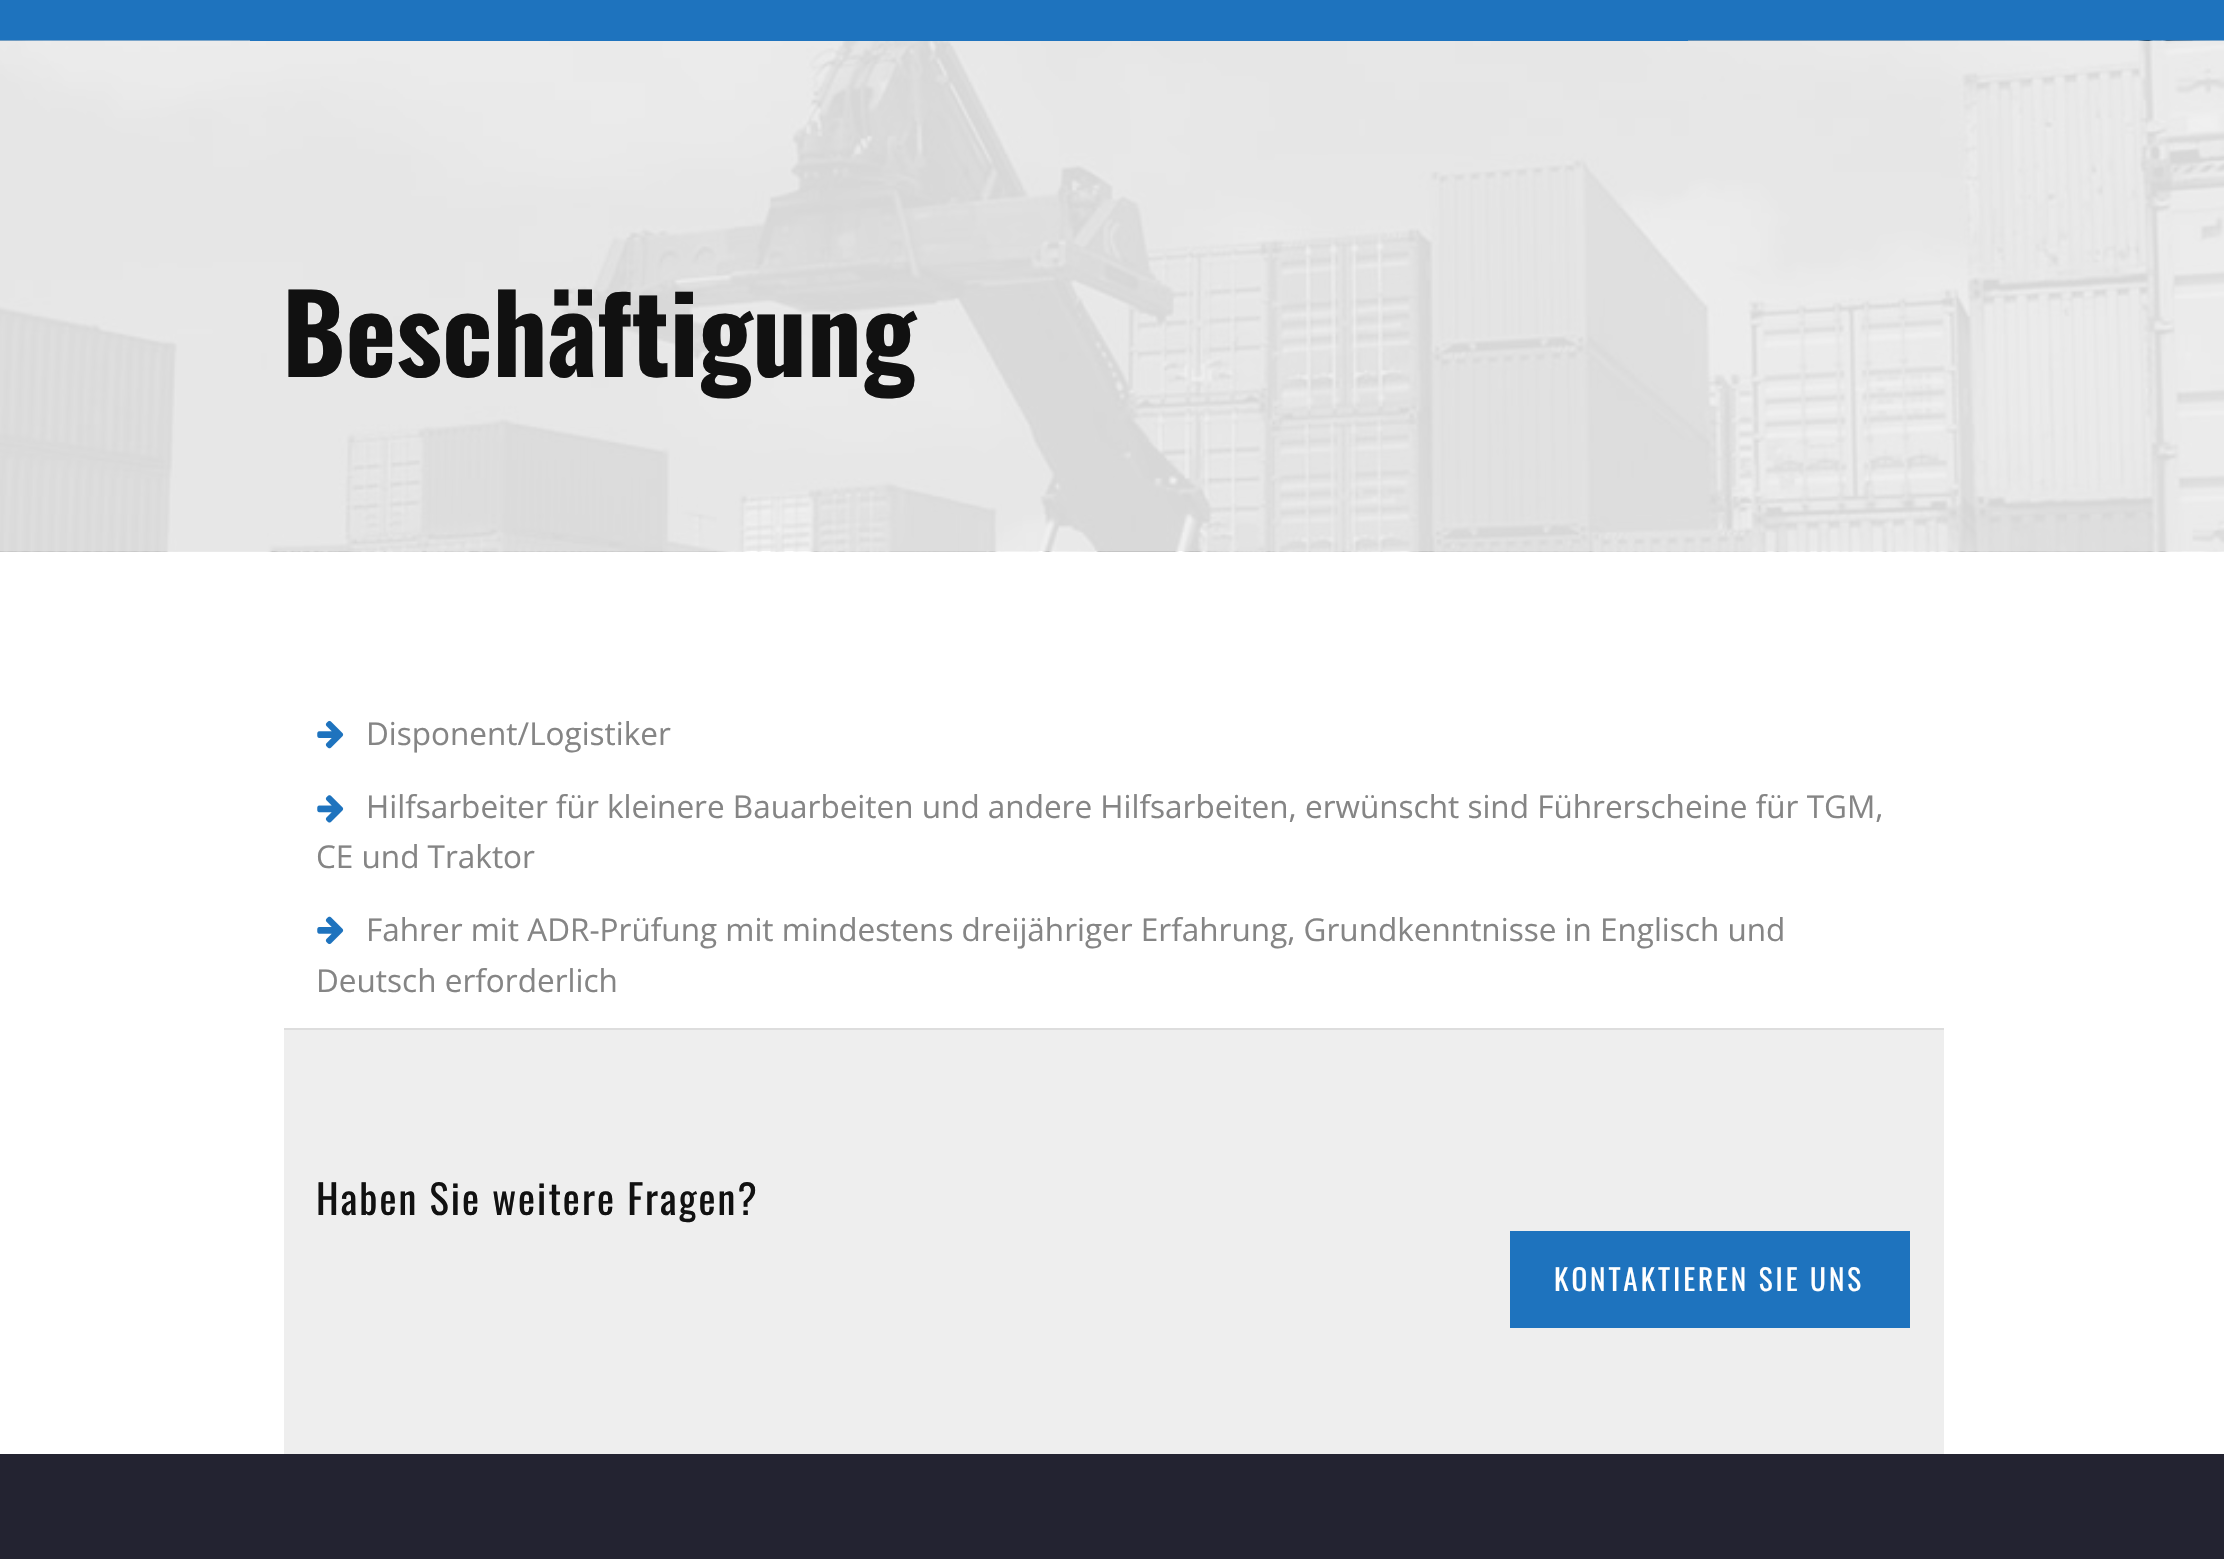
#include "include/core/SkBlurTypes.h"
#include "include/core/SkCanvas.h"
#include "include/core/SkData.h"
#include "include/core/SkFont.h"
#include "include/core/SkFontMgr.h"
#include "include/core/SkImage.h"
#include "include/core/SkMaskFilter.h"
#include "include/core/SkPaint.h"
#include "include/core/SkPathBuilder.h"
#include "include/core/SkTextBlob.h"
#include "include/effects/SkDashPathEffect.h"
#include "include/effects/SkGradientShader.h"
#include "include/utils/SkParsePath.h"

extern sk_sp<SkFontMgr> fontMgr;

static SkFont font(const char* family, int weight, float size, bool italic = false) {
    SkFontStyle style(weight, SkFontStyle::kNormal_Width,
        italic ? SkFontStyle::kItalic_Slant : SkFontStyle::kUpright_Slant);
    SkFont result(fontMgr->matchFamilyStyle(family, style), size);
    result.setSubpixel(true);
    return result;
}

static void drawLabel(SkCanvas* canvas, const char* s, float x, float y, const SkFont& font, SkColor color) {
    SkPaint ink(SkColor4f::FromColor(color));
    ink.setAntiAlias(true);
    canvas->drawString(s, x, y, font, ink);
}

static void drawTracked(SkCanvas* canvas, const char* s, float x, float y, const SkFont& font, const SkPaint& ink, float letter, float word) {
    std::vector<SkGlyphID> glyphs(font.countText(s, strlen(s), SkTextEncoding::kUTF8));
    std::vector<float> xs(glyphs.size());
    font.textToGlyphs(s, strlen(s), SkTextEncoding::kUTF8, glyphs);
    font.getXPos(glyphs, xs, x);
    float extra = 0;
    for (size_t i = 0; i < glyphs.size(); i++) {
        xs[i] += extra;
        extra += letter + word * (glyphs[i] == font.unicharToGlyph(' '));
    }
    canvas->drawTextBlob(SkTextBlob::MakeFromPosHGlyphs(glyphs, xs, y, font), 0, 0, ink);
}

static void fillRect(SkCanvas* canvas, float x, float y, float w, float h, SkColor color) {
    SkPaint ink(SkColor4f::FromColor(color));
    ink.setAntiAlias(true);
    canvas->drawRect(SkRect::MakeXYWH(x, y, w, h), ink);
}

static void drawPhoto(SkCanvas* canvas, const char* path, float x, float y, float w, float h) {
    auto image = SkImages::DeferredFromEncodedData(SkData::MakeFromFileName(path));
    canvas->drawImageRect(image, SkRect::MakeXYWH(x, y, w, h), SkSamplingOptions());
}

void draw(SkCanvas* canvas) {
    SkPaint paint;
    paint.setAntiAlias(true);
    canvas->clear(0xFFFFFFFF);
    fillRect(canvas, 0, 0, 2224, 41, 0xFF1E73BE);
    drawPhoto(canvas, "assets/img1.png", 0, 40, 2224, 512);
    fillRect(canvas, 250, 40, 1438, 1, 0xFF1E73BE);
    SkFont font1 = font("Oswald", 700, 108);
    drawLabel(canvas, "Beschäftigung", 282, 377, font1, 0xFF111111);
    drawPhoto(canvas, "assets/img2.png", 317, 720, 27, 29);
    SkFont font2 = font("Open Sans", 400, 31.5f);
    drawLabel(canvas, "Disponent/Logistiker", 366, 745, font2, 0xFF858585);
    drawPhoto(canvas, "assets/img3.png", 317, 795, 27, 28);
    drawLabel(canvas, "Hilfsarbeiter für kleinere Bauarbeiten und andere Hilfsarbeiten, erwünscht sind Führerscheine für TGM,", 366, 818, font2, 0xFF858585);
    drawLabel(canvas, "CE und Traktor", 316, 868, font2, 0xFF858585);
    drawPhoto(canvas, "assets/img4.png", 317, 916, 27, 29);
    drawLabel(canvas, "Fahrer mit ADR-Prüfung mit mindestens dreijähriger Erfahrung, Grundkenntnisse in Englisch und", 366, 941, font2, 0xFF858585);
    drawLabel(canvas, "Deutsch erforderlich", 316, 992, font2, 0xFF858585);
    fillRect(canvas, 284, 1030, 1660, 424, 0xFFEEEEEE);
    fillRect(canvas, 284, 1028, 1660, 2, 0xFFDDDDDD);
    SkFont font3 = font("Oswald", 400, 40.5f);
    paint.setColor(0xFF111111);
    drawTracked(canvas, "Haben Sie weitere Fragen?", 316, 1215, font3, paint, 2, 0);
    fillRect(canvas, 1510, 1231, 400, 97, 0xFF1E73BE);
    SkFont font4 = font("Oswald", 400, 29.25f);
    paint.setColor(0xFFFFFFFF);
    drawTracked(canvas, "KONTAKTIEREN SIE UNS", 1554, 1291, font4, paint, 2.9f, 0);
    fillRect(canvas, 0, 1454, 2224, 105, 0xFF232331);
}
